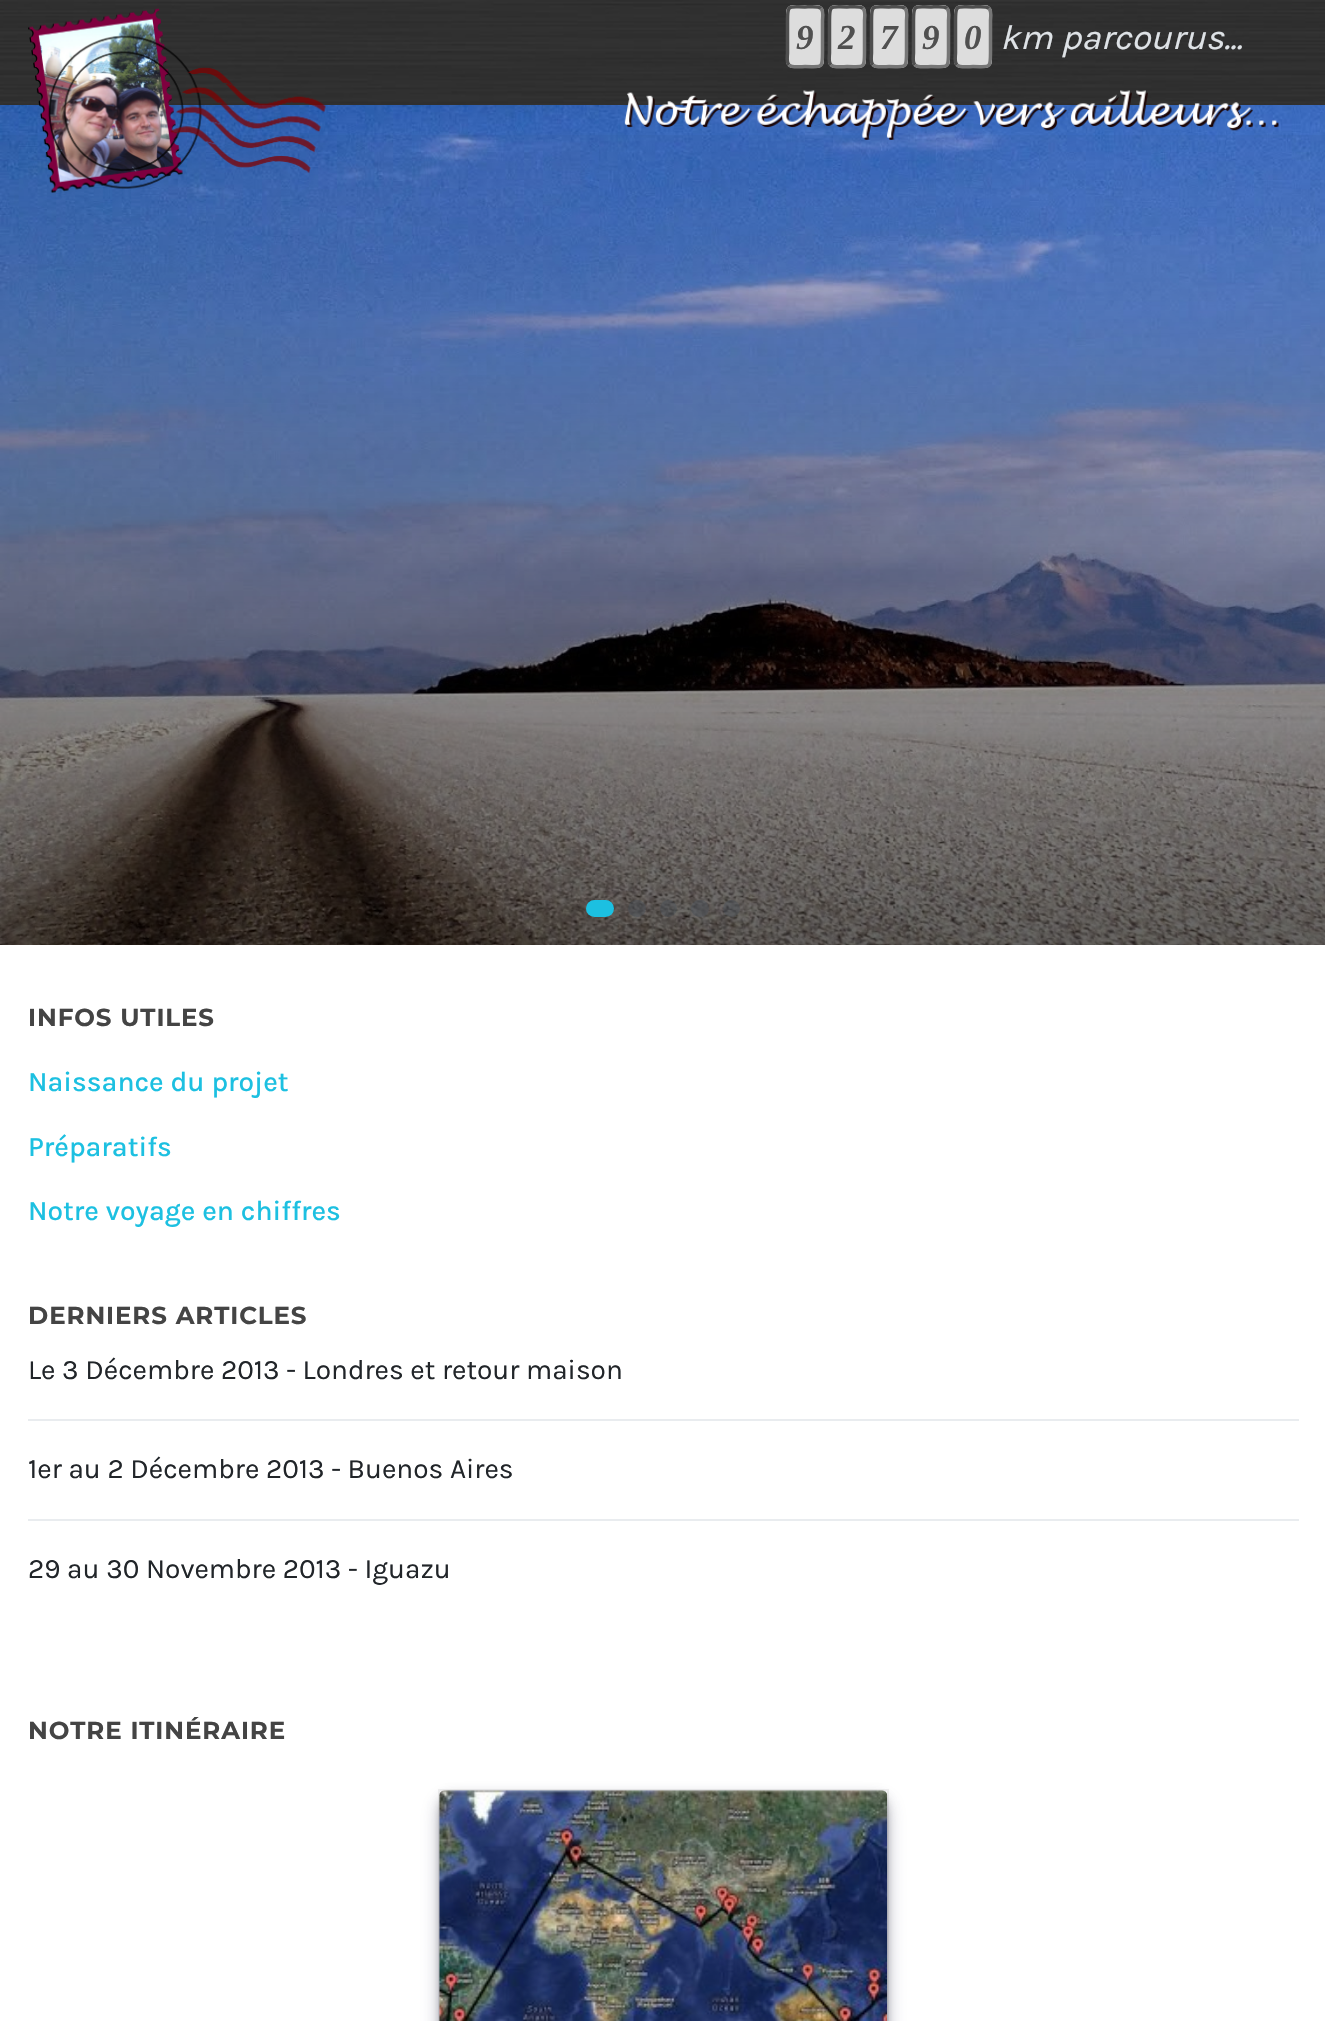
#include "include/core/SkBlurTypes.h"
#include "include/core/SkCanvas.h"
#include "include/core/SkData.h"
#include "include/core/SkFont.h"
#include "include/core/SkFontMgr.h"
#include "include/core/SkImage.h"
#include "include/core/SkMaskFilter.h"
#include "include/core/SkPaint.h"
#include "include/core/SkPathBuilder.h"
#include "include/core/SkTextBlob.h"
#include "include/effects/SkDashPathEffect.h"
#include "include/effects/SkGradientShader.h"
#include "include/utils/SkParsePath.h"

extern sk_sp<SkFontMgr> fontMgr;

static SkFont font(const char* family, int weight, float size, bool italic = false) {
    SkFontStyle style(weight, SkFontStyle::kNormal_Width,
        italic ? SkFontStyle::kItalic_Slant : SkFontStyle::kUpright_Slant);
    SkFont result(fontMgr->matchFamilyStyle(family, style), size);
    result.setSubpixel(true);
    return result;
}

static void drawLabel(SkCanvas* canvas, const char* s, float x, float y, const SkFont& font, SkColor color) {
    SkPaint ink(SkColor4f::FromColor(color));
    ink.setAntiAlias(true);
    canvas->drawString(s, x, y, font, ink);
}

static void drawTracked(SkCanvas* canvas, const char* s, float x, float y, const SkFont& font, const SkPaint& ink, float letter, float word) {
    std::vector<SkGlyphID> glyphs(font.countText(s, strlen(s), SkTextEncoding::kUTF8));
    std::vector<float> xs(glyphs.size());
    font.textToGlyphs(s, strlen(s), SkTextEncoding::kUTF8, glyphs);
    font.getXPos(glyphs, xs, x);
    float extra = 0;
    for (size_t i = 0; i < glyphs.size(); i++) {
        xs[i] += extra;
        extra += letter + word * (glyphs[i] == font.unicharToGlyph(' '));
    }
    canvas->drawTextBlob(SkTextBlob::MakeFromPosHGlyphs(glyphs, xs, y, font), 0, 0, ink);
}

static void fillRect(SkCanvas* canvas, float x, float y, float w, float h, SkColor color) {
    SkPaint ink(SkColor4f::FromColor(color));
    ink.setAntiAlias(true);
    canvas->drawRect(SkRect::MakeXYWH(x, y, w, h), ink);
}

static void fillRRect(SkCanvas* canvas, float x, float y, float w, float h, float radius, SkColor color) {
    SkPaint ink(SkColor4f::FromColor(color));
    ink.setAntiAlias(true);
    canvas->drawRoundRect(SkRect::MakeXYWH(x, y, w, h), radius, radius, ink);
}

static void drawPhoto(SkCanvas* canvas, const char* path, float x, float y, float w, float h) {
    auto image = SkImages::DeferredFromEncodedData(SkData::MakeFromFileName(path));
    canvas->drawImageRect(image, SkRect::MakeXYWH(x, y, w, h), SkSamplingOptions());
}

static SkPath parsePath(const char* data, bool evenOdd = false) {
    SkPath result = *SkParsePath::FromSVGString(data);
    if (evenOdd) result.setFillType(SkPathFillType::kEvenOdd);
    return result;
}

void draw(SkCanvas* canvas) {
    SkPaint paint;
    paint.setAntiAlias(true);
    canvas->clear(0xFFFFFFFF);
    drawPhoto(canvas, "assets/img1.png", 0, 944, 1325, 1);
    drawPhoto(canvas, "assets/img2.png", 0, 0, 1325, 105);
    drawPhoto(canvas, "assets/img5.png", 0, 105, 1325, 840);
    {
        const SkColor colors[] = {0x99000000, 0x00000000};
        const float stops[] = {0, 1};
        const SkPoint ends[] = {{663, 945}, {663, 105}};
        paint.setShader(SkGradientShader::MakeLinear(ends, colors, stops, 2, SkTileMode::kClamp));
        paint.setAlpha(255);
    }
    canvas->drawRect(SkRect::MakeXYWH(0, 135, 1325, 810), paint);
    drawPhoto(canvas, "assets/img3.png", 28, 8, 298, 185);
    fillRRect(canvas, 786, 5, 38, 63, 7, 0xFFDDDDDD);
    paint.setStroke(true);
    paint.setStrokeWidth(3.5f);
    paint.setShader(nullptr);
    paint.setColor(0xFF767676);
    canvas->drawPath(parsePath("M821 8.5C824 11.5 822.5 17.5 822.5 20.5V53C822.5 69.5 821.5 66.5 805 66.5C801.5 66.5 792 68 789 65"), paint);
    paint.setColor(0xFF4F4F4F);
    canvas->drawPath(parsePath("M789 65C786 62 787.5 56 787.5 53V20.5C787.5 4 788.5 7 805 7C808.5 7 818 5.5 821 8.5"), paint);
    SkFont font1 = font("Liberation Serif", 700, 35, true);
    drawLabel(canvas, "9", 796, 49, font1, 0xFF505050);
    fillRRect(canvas, 828, 5, 38, 63, 7, 0xFFDDDDDD);
    paint.setColor(0xFF767676);
    canvas->drawPath(parsePath("M863 8.5C866 11.5 864.5 17.5 864.5 20.5V53C864.5 69.5 863.5 66.5 847 66.5C843.5 66.5 834 68 831 65"), paint);
    paint.setColor(0xFF4F4F4F);
    canvas->drawPath(parsePath("M831 65C828 62 829.5 56 829.5 53V20.5C829.5 4 830.5 7 847 7C850.5 7 860 5.5 863 8.5"), paint);
    drawLabel(canvas, "2", 838, 49, font1, 0xFF505050);
    fillRRect(canvas, 870, 5, 38, 63, 7, 0xFFDDDDDD);
    paint.setColor(0xFF767676);
    canvas->drawPath(parsePath("M905 8.5C908 11.5 906.5 17.5 906.5 20.5V53C906.5 69.5 905.5 66.5 889 66.5C885.5 66.5 876 68 873 65"), paint);
    paint.setColor(0xFF4F4F4F);
    canvas->drawPath(parsePath("M873 65C870 62 871.5 56 871.5 53V20.5C871.5 4 872.5 7 889 7C892.5 7 902 5.5 905 8.5"), paint);
    drawLabel(canvas, "7", 880, 49, font1, 0xFF505050);
    fillRRect(canvas, 912, 5, 38, 63, 7, 0xFFDDDDDD);
    paint.setColor(0xFF767676);
    canvas->drawPath(parsePath("M947 8.5C950 11.5 948.5 17.5 948.5 20.5V53C948.5 69.5 947.5 66.5 931 66.5C927.5 66.5 918 68 915 65"), paint);
    paint.setColor(0xFF4F4F4F);
    canvas->drawPath(parsePath("M915 65C912 62 913.5 56 913.5 53V20.5C913.5 4 914.5 7 931 7C934.5 7 944 5.5 947 8.5"), paint);
    drawLabel(canvas, "9", 922, 49, font1, 0xFF505050);
    fillRRect(canvas, 954, 5, 38, 63, 7, 0xFFDDDDDD);
    paint.setColor(0xFF767676);
    canvas->drawPath(parsePath("M989 8.5C992 11.5 990.5 17.5 990.5 20.5V53C990.5 69.5 989.5 66.5 973 66.5C969.5 66.5 960 68 957 65"), paint);
    paint.setColor(0xFF4F4F4F);
    canvas->drawPath(parsePath("M957 65C954 62 955.5 56 955.5 53V20.5C955.5 4 956.5 7 973 7C976.5 7 986 5.5 989 8.5"), paint);
    drawLabel(canvas, "0", 964, 49, font1, 0xFF505050);
    SkFont font2 = font("Karla", 400, 35, true);
    drawLabel(canvas, "km parcourus...", 1000, 49, font2, 0xFFDEE2E6);
    drawPhoto(canvas, "assets/img4.png", 624, 90, 655, 50);
    fillRRect(canvas, 586, 900, 28, 17, 8.5f, 0xFF1CC0E1);
    fillRRect(canvas, 628, 900, 18, 17, 8.5f, 0x80495057);
    paint.setStroke(false);
    paint.setColor(0x80495057);
    canvas->drawCircle(668.5f, 908.5f, 8.5f, paint);
    fillRRect(canvas, 691, 900, 18, 17, 8.5f, 0x80495057);
    canvas->drawCircle(731.5f, 908.5f, 8.5f, paint);
    SkFont font3 = font("Montserrat", 700, 24.5f);
    paint.setColor(0xFF444444);
    drawTracked(canvas, "INFOS UTILES", 28, 1026, font3, paint, 0.9f, 0);
    SkFont font4 = font("Karla", 500, 28);
    drawLabel(canvas, "Naissance du projet", 28, 1091, font4, 0xFF1CC0E1);
    drawLabel(canvas, "Préparatifs", 28, 1156, font4, 0xFF1CC0E1);
    drawLabel(canvas, "Notre voyage en chiffres", 28, 1220, font4, 0xFF1CC0E1);
    drawTracked(canvas, "DERNIERS ARTICLES", 28, 1324, font3, paint, 0.9f, 0);
    fillRect(canvas, 28, 1419, 1271, 2, 0xFFE9ECEF);
    SkFont font5 = font("Karla", 400, 28);
    drawLabel(canvas, "Le 3 Décembre 2013 - Londres et retour maison", 28, 1379, font5, 0xFF212529);
    fillRect(canvas, 28, 1519, 1271, 2, 0xFFE9ECEF);
    drawLabel(canvas, "1er au 2 Décembre 2013 - Buenos Aires", 28, 1478, font5, 0xFF212529);
    drawLabel(canvas, "29 au 30 Novembre 2013 - Iguazu", 28, 1578, font5, 0xFF212529);
    drawTracked(canvas, "NOTRE ITINÉRAIRE", 28, 1739, font3, paint, 0.9f, 0);
    paint.setStroke(true);
    paint.setStrokeWidth(2);
    paint.setColor(0xFFF0F0F0);
    canvas->drawRect(SkRect::MakeXYWH(439, 1790, 449, 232), paint);
    paint.setStroke(false);
    paint.setColor(0x6632325D);
    paint.setMaskFilter(SkMaskFilter::MakeBlur(kNormal_SkBlurStyle, 10.5f));
    canvas->drawRoundRect(SkRect::MakeXYWH(443, 1804, 441, 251), 2, 2, paint);
    paint.setMaskFilter(nullptr);
    paint.setColor(0xB3000000);
    paint.setMaskFilter(SkMaskFilter::MakeBlur(kNormal_SkBlurStyle, 6));
    canvas->drawRect(SkRect::MakeXYWH(445, 1801, 437, 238), paint);
    paint.setMaskFilter(nullptr);
    drawPhoto(canvas, "assets/img6.png", 439, 1790, 449, 231);
}
